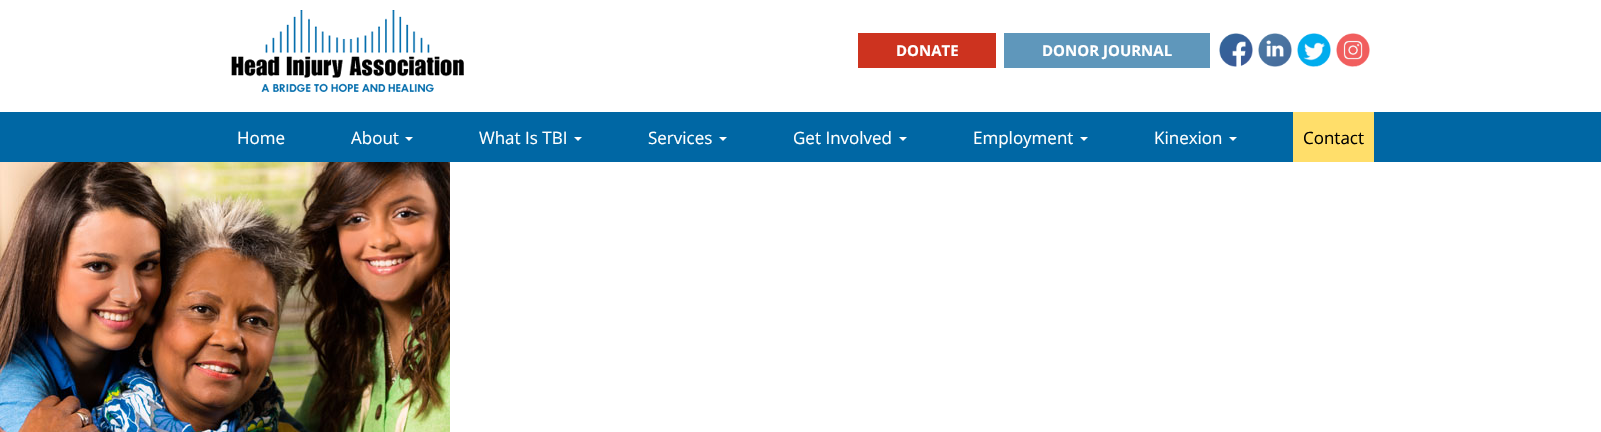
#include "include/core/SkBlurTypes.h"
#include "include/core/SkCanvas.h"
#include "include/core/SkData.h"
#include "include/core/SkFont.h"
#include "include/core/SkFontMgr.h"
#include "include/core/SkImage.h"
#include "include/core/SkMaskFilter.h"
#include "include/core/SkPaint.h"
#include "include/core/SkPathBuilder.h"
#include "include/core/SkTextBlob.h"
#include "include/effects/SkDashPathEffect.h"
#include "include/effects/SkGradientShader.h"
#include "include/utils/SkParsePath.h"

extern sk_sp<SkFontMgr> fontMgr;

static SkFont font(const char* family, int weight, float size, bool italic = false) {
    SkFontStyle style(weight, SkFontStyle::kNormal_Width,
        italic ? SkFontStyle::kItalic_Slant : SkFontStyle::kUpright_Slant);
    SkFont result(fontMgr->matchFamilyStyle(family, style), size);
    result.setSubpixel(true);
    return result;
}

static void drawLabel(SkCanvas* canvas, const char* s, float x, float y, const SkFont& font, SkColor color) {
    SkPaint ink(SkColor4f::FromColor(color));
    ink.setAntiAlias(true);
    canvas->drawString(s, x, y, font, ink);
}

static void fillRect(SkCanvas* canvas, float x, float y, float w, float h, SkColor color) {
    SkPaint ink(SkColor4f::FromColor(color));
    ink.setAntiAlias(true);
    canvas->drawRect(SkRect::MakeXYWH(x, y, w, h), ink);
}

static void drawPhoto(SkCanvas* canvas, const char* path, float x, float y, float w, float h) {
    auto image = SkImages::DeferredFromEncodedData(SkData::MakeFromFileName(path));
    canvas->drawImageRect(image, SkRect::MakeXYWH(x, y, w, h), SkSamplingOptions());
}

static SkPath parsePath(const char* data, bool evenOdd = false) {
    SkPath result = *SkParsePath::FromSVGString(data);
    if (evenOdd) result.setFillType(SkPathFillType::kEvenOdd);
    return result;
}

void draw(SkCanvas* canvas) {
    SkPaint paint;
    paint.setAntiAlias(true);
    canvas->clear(0xFFFFFFFF);
    drawPhoto(canvas, "assets/img1.png", 231, 10, 233, 82);
    fillRect(canvas, 858, 33, 138, 35, 0xFFCD331F);
    SkFont font1 = font("Open Sans", 700, 15);
    drawLabel(canvas, "DONATE", 896, 56, font1, 0xFFFFFFFF);
    fillRect(canvas, 1004, 33, 206, 35, 0xFF5F97BB);
    drawLabel(canvas, "DONOR JOURNAL", 1042, 56, font1, 0xFFFFFFFF);
    drawPhoto(canvas, "assets/img2.png", 1219, 33, 34, 34);
    drawPhoto(canvas, "assets/img3.png", 1258, 33, 34, 34);
    drawPhoto(canvas, "assets/img4.png", 1297, 33, 34, 34);
    drawPhoto(canvas, "assets/img5.png", 1336, 33, 34, 34);
    fillRect(canvas, 0, 112, 1601, 50, 0xFF0067A4);
    SkFont font2 = font("Open Sans", 400, 17);
    drawLabel(canvas, "Home", 237, 144, font2, 0xFFFFFFFF);
    drawLabel(canvas, "About", 351, 144, font2, 0xFFFFFFFF);
    paint.setColor(0xFFFFFFFF);
    canvas->drawPath(parsePath("M405 137H413L409 141Z"), paint);
    drawLabel(canvas, "What Is TBI", 479, 144, font2, 0xFFFFFFFF);
    canvas->drawPath(parsePath("M574 137H582L578 141Z"), paint);
    drawLabel(canvas, "Services", 648, 144, font2, 0xFFFFFFFF);
    canvas->drawPath(parsePath("M719 137H727L723 141Z"), paint);
    drawLabel(canvas, "Get Involved", 793, 144, font2, 0xFFFFFFFF);
    canvas->drawPath(parsePath("M899 137H907L903 141Z"), paint);
    drawLabel(canvas, "Employment", 973, 144, font2, 0xFFFFFFFF);
    canvas->drawPath(parsePath("M1080 137H1088L1084 141Z"), paint);
    drawLabel(canvas, "Kinexion", 1154, 144, font2, 0xFFFFFFFF);
    canvas->drawPath(parsePath("M1229 137H1237L1233 141Z"), paint);
    fillRect(canvas, 1293, 112, 81, 50, 0xFFFFDE6A);
    drawLabel(canvas, "Contact", 1303, 144, font2, 0xFF000000);
    drawPhoto(canvas, "assets/img6.png", 0, 162, 450, 270);
}
